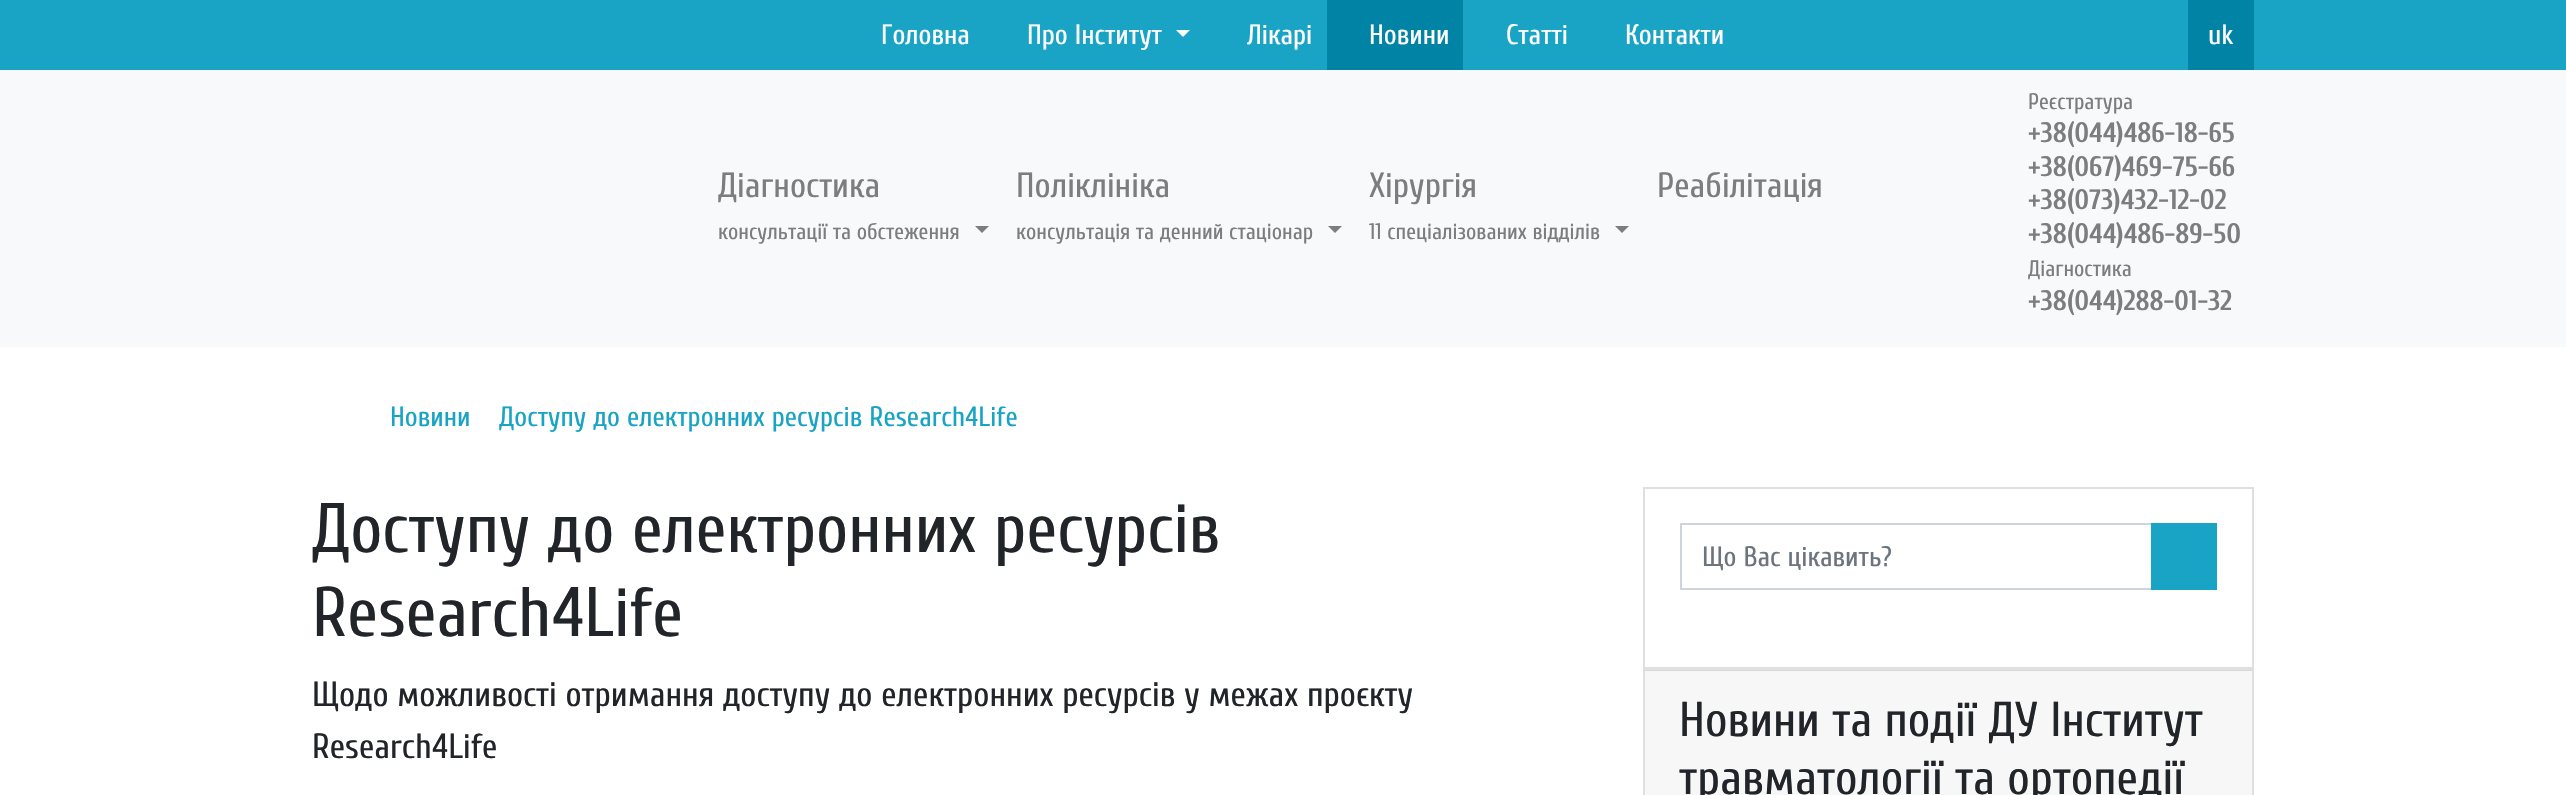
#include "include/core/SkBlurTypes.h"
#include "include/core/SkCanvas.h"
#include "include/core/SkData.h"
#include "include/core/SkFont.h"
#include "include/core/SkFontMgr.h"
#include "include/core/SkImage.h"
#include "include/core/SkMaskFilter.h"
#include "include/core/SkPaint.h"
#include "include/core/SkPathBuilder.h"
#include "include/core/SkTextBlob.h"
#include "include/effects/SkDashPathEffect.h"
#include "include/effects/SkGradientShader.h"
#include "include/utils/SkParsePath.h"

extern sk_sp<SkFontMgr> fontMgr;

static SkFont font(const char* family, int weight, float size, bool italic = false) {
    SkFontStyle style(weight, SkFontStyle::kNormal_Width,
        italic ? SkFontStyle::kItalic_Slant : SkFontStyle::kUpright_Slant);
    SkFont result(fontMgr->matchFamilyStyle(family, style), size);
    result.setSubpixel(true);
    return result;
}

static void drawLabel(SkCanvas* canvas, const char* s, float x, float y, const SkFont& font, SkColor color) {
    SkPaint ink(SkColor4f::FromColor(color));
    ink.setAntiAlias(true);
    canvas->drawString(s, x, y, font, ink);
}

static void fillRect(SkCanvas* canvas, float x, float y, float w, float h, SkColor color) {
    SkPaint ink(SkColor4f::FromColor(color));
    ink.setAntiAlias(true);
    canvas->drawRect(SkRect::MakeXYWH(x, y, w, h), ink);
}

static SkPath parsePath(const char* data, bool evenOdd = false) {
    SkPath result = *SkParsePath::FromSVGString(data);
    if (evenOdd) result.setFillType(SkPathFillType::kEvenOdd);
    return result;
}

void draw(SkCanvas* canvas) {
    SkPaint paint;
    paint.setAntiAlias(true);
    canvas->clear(0xFFFFFFFF);
    fillRect(canvas, 0, 0, 2566, 70, 0xFF19A4C6);
    SkFont font1 = font("Cuprum", 400, 28);
    drawLabel(canvas, "Головна", 881, 44, font1, 0xFFFFFFFF);
    drawLabel(canvas, "Про Інститут", 1027, 44, font1, 0xFFFFFFFF);
    paint.setColor(0xFFFFFFFF);
    canvas->drawPath(parsePath("M1176 30H1190L1183 37Z"), paint);
    drawLabel(canvas, "Лікарі", 1247, 44, font1, 0xFFFFFFFF);
    fillRect(canvas, 1327, 0, 136, 70, 0xFF0083A4);
    drawLabel(canvas, "Новини", 1369, 44, font1, 0xFFFFFFFF);
    drawLabel(canvas, "Статті", 1506, 44, font1, 0xFFFFFFFF);
    drawLabel(canvas, "Контакти", 1625, 44, font1, 0xFFFFFFFF);
    fillRect(canvas, 2188, 0, 66, 70, 0xFF0083A4);
    drawLabel(canvas, "uk", 2208, 44, font1, 0xFFFFFFFF);
    fillRect(canvas, 0, 70, 2566, 277, 0xFFF8F9FA);
    SkFont font2 = font("Cuprum", 400, 35);
    drawLabel(canvas, "Діагностика", 718, 197, font2, 0xFF7C7D7D);
    SkFont font3 = font("Cuprum", 400, 22.4f);
    drawLabel(canvas, "консультації та обстеження", 718, 239, font3, 0xFF7C7D7D);
    paint.setColor(0xFF7C7D7D);
    canvas->drawPath(parsePath("M975 226H989L982 233Z"), paint);
    drawLabel(canvas, "Поліклініка", 1016, 197, font2, 0xFF7C7D7D);
    drawLabel(canvas, "консультація та денний стаціонар", 1016, 239, font3, 0xFF7C7D7D);
    canvas->drawPath(parsePath("M1328 226H1342L1335 233Z"), paint);
    drawLabel(canvas, "Хірургія", 1369, 197, font2, 0xFF7C7D7D);
    drawLabel(canvas, "11 спеціалізованих відділів", 1369, 239, font3, 0xFF7C7D7D);
    canvas->drawPath(parsePath("M1615 226H1629L1622 233Z"), paint);
    drawLabel(canvas, "Реабілітація", 1657, 197, font2, 0xFF7C7D7D);
    drawLabel(canvas, "Реєстратура", 2028, 109, font3, 0xFF7C7D7D);
    SkFont font4 = font("Cuprum", 700, 28);
    drawLabel(canvas, "+38(044)486-18-65", 2028, 142, font4, 0xFF7C7D7D);
    drawLabel(canvas, "+38(067)469-75-66", 2028, 176, font4, 0xFF7C7D7D);
    drawLabel(canvas, "+38(073)432-12-02", 2028, 209, font4, 0xFF7C7D7D);
    drawLabel(canvas, "+38(044)486-89-50", 2028, 243, font4, 0xFF7C7D7D);
    drawLabel(canvas, "Діагностика", 2028, 276, font3, 0xFF7C7D7D);
    drawLabel(canvas, "+38(044)288-01-32", 2028, 310, font4, 0xFF7C7D7D);
    drawLabel(canvas, "Новини", 390, 426, font1, 0xFF19A4C6);
    drawLabel(canvas, "Доступу до електронних ресурсів Research4Life", 499, 426, font1, 0xFF19A4C6);
    SkFont font5 = font("Cuprum", 400, 70);
    drawLabel(canvas, "Доступу до електронних ресурсів", 312, 552, font5, 0xFF212529);
    drawLabel(canvas, "Research4Life", 312, 636, font5, 0xFF212529);
    drawLabel(canvas, "Щодо можливості отримання доступу до електронних ресурсів у межах проєкту", 312, 706, font2, 0xFF212529);
    drawLabel(canvas, "Research4Life", 312, 758, font2, 0xFF212529);
    paint.setStroke(true);
    paint.setStrokeWidth(2);
    paint.setColor(0xFFDFDFDF);
    canvas->drawRect(SkRect::MakeXYWH(1644, 488, 609, 180), paint);
    paint.setColor(0xFFCED4DA);
    canvas->drawRect(SkRect::MakeXYWH(1681, 524, 471, 65), paint);
    drawLabel(canvas, "Що Вас цікавить?", 1702, 566, font1, 0xFF6C757D);
    fillRect(canvas, 2151, 523, 66, 67, 0xFF19A4C6);
    paint.setColor(0xFFDFDFDF);
    canvas->drawRect(SkRect::MakeXYWH(1644, 670, 609, 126), paint);
    fillRect(canvas, 1645, 670, 607, 125, 0x08000000);
    SkFont font6 = font("Cuprum", 400, 49);
    drawLabel(canvas, "Новини та події ДУ Інститут", 1679, 736, font6, 0xFF212529);
    drawLabel(canvas, "травматології та ортопедії", 1679, 794, font6, 0xFF212529);
}
